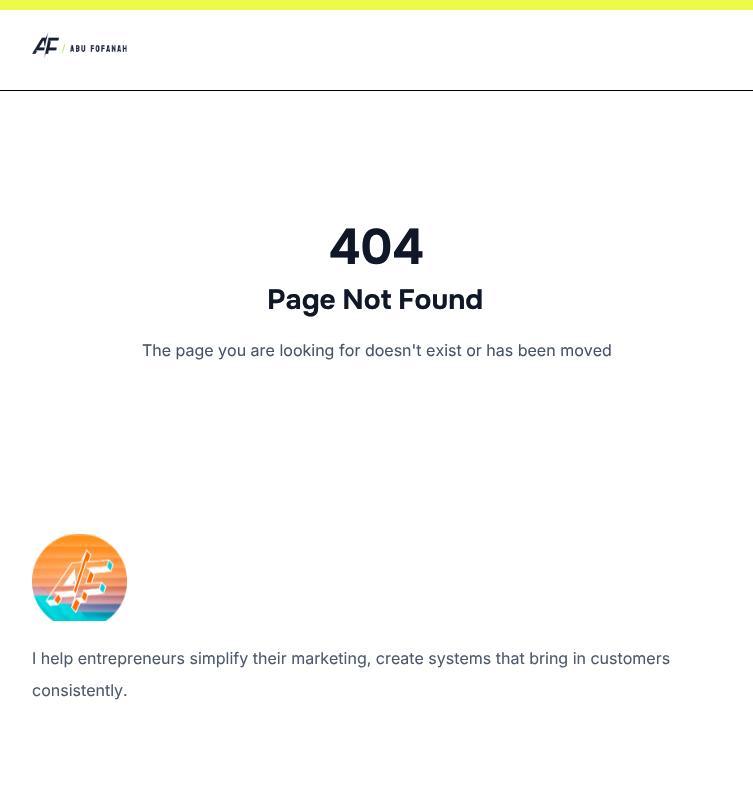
#include "include/core/SkBlurTypes.h"
#include "include/core/SkCanvas.h"
#include "include/core/SkData.h"
#include "include/core/SkFont.h"
#include "include/core/SkFontMgr.h"
#include "include/core/SkImage.h"
#include "include/core/SkMaskFilter.h"
#include "include/core/SkPaint.h"
#include "include/core/SkPathBuilder.h"
#include "include/core/SkTextBlob.h"
#include "include/effects/SkDashPathEffect.h"
#include "include/effects/SkGradientShader.h"
#include "include/utils/SkParsePath.h"

extern sk_sp<SkFontMgr> fontMgr;

static SkFont font(const char* family, int weight, float size, bool italic = false) {
    SkFontStyle style(weight, SkFontStyle::kNormal_Width,
        italic ? SkFontStyle::kItalic_Slant : SkFontStyle::kUpright_Slant);
    SkFont result(fontMgr->matchFamilyStyle(family, style), size);
    result.setSubpixel(true);
    return result;
}

static void drawLabel(SkCanvas* canvas, const char* s, float x, float y, const SkFont& font, SkColor color) {
    SkPaint ink(SkColor4f::FromColor(color));
    ink.setAntiAlias(true);
    canvas->drawString(s, x, y, font, ink);
}

static void drawTracked(SkCanvas* canvas, const char* s, float x, float y, const SkFont& font, const SkPaint& ink, float letter, float word) {
    std::vector<SkGlyphID> glyphs(font.countText(s, strlen(s), SkTextEncoding::kUTF8));
    std::vector<float> xs(glyphs.size());
    font.textToGlyphs(s, strlen(s), SkTextEncoding::kUTF8, glyphs);
    font.getXPos(glyphs, xs, x);
    float extra = 0;
    for (size_t i = 0; i < glyphs.size(); i++) {
        xs[i] += extra;
        extra += letter + word * (glyphs[i] == font.unicharToGlyph(' '));
    }
    canvas->drawTextBlob(SkTextBlob::MakeFromPosHGlyphs(glyphs, xs, y, font), 0, 0, ink);
}

static void fillRect(SkCanvas* canvas, float x, float y, float w, float h, SkColor color) {
    SkPaint ink(SkColor4f::FromColor(color));
    ink.setAntiAlias(true);
    canvas->drawRect(SkRect::MakeXYWH(x, y, w, h), ink);
}

static void drawPhoto(SkCanvas* canvas, const char* path, float x, float y, float w, float h) {
    auto image = SkImages::DeferredFromEncodedData(SkData::MakeFromFileName(path));
    canvas->drawImageRect(image, SkRect::MakeXYWH(x, y, w, h), SkSamplingOptions());
}

void draw(SkCanvas* canvas) {
    SkPaint paint;
    paint.setAntiAlias(true);
    canvas->clear(0xFFFFFFFF);
    fillRect(canvas, 0, 90, 753, 1, 0xFF000000);
    fillRect(canvas, 0, 0, 753, 10, 0xFFEBFB48);
    drawPhoto(canvas, "assets/img1.png", 32, 32, 95, 26);
    SkFont font1 = font("Onest", 700, 50);
    drawLabel(canvas, "404", 329, 264, font1, 0xFF101828);
    SkFont font2 = font("Onest", 700, 28);
    paint.setColor(0xFF101828);
    drawTracked(canvas, "Page Not Found", 267, 309, font2, paint, 0, -1);
    SkFont font3 = font("Inter", 400, 16);
    drawLabel(canvas, "The page you are looking for doesn't exist or has been moved", 142, 356, font3, 0xFF475467);
    drawPhoto(canvas, "assets/img2.png", 32, 534, 95, 87);
    drawLabel(canvas, "I help entrepreneurs simplify their marketing, create systems that bring in customers", 32, 664, font3, 0xFF4D596C);
    drawLabel(canvas, "consistently.", 32, 696, font3, 0xFF4D596C);
}
